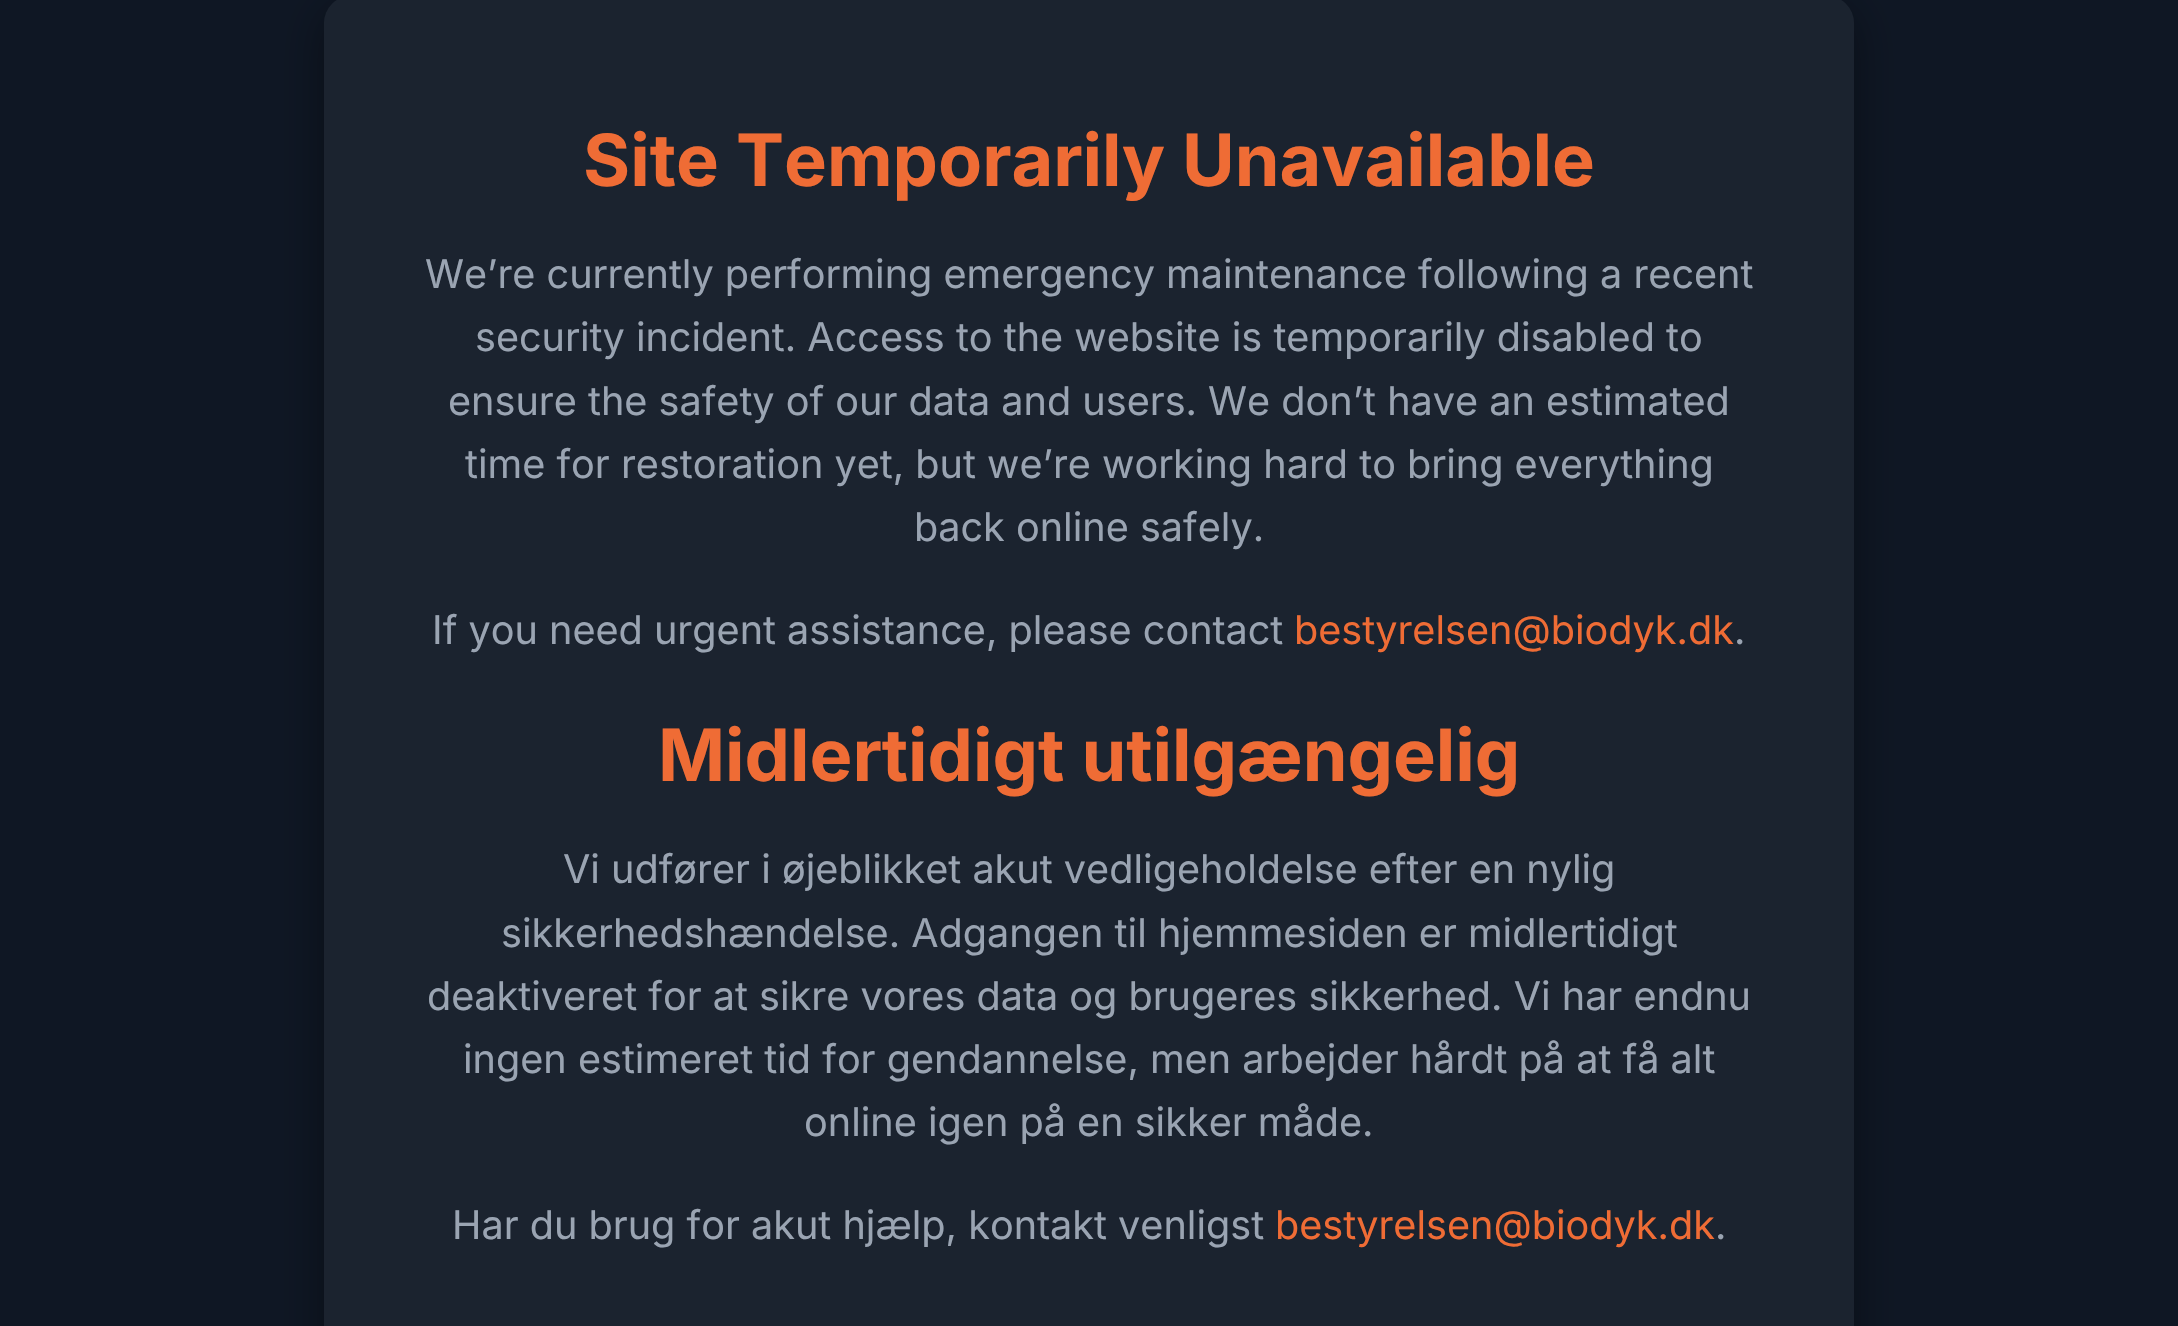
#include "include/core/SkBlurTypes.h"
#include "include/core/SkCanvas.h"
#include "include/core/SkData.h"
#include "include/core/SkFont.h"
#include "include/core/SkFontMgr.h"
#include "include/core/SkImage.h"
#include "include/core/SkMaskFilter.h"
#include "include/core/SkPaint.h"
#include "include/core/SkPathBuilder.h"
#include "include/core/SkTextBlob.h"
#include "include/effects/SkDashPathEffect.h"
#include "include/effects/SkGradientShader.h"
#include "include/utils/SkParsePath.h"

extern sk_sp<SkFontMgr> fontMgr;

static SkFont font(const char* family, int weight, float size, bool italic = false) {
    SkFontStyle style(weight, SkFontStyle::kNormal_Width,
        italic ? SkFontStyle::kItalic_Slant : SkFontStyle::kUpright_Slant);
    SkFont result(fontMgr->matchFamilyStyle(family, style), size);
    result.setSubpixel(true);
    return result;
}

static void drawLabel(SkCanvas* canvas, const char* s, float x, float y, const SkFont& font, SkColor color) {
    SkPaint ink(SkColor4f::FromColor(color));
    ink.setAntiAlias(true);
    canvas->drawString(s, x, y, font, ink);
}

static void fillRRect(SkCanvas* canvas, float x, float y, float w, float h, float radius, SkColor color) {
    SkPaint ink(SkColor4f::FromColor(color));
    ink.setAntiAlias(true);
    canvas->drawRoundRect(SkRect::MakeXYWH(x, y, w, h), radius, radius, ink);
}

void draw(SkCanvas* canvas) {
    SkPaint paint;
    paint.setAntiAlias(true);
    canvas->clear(0xFF0F1724);
    paint.setColor(0x66000000);
    paint.setMaskFilter(SkMaskFilter::MakeBlur(kNormal_SkBlurStyle, 22.5f));
    canvas->drawRoundRect(SkRect::MakeXYWH(324, 9, 1530, 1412), 27, 27, paint);
    paint.setMaskFilter(nullptr);
    fillRRect(canvas, 324, -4, 1530, 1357, 27, 0xFF1B232F);
    SkFont font1 = font("Inter", 700, 72);
    drawLabel(canvas, "Site Temporarily Unavailable", 583, 186, font1, 0xFFEF6C35);
    SkFont font2 = font("Inter", 400, 39.6f);
    drawLabel(canvas, "We’re currently performing emergency maintenance following a recent", 425, 288, font2, 0xFF9AA4B2);
    drawLabel(canvas, "security incident. Access to the website is temporarily disabled to", 475, 351, font2, 0xFF9AA4B2);
    drawLabel(canvas, "ensure the safety of our data and users. We don’t have an estimated", 448, 415, font2, 0xFF9AA4B2);
    drawLabel(canvas, "time for restoration yet, but we’re working hard to bring everything", 465, 478, font2, 0xFF9AA4B2);
    drawLabel(canvas, "back online safely.", 914, 541, font2, 0xFF9AA4B2);
    drawLabel(canvas, "If you need urgent assistance, please contact", 432, 644, font2, 0xFF9AA4B2);
    drawLabel(canvas, "bestyrelsen@biodyk.dk", 1294, 644, font2, 0xFFEF6C35);
    drawLabel(canvas, ".", 1734, 644, font2, 0xFF9AA4B2);
    drawLabel(canvas, "Midlertidigt utilgængelig", 658, 781, font1, 0xFFEF6C35);
    drawLabel(canvas, "Vi udfører i øjeblikket akut vedligeholdelse efter en nylig", 563, 883, font2, 0xFF9AA4B2);
    drawLabel(canvas, "sikkerhedshændelse. Adgangen til hjemmesiden er midlertidigt", 501, 947, font2, 0xFF9AA4B2);
    drawLabel(canvas, "deaktiveret for at sikre vores data og brugeres sikkerhed. Vi har endnu", 427, 1010, font2, 0xFF9AA4B2);
    drawLabel(canvas, "ingen estimeret tid for gendannelse, men arbejder hårdt på at få alt", 463, 1073, font2, 0xFF9AA4B2);
    drawLabel(canvas, "online igen på en sikker måde.", 804, 1136, font2, 0xFF9AA4B2);
    drawLabel(canvas, "Har du brug for akut hjælp, kontakt venligst", 452, 1239, font2, 0xFF9AA4B2);
    drawLabel(canvas, "bestyrelsen@biodyk.dk", 1275, 1239, font2, 0xFFEF6C35);
    drawLabel(canvas, ".", 1715, 1239, font2, 0xFF9AA4B2);
}
